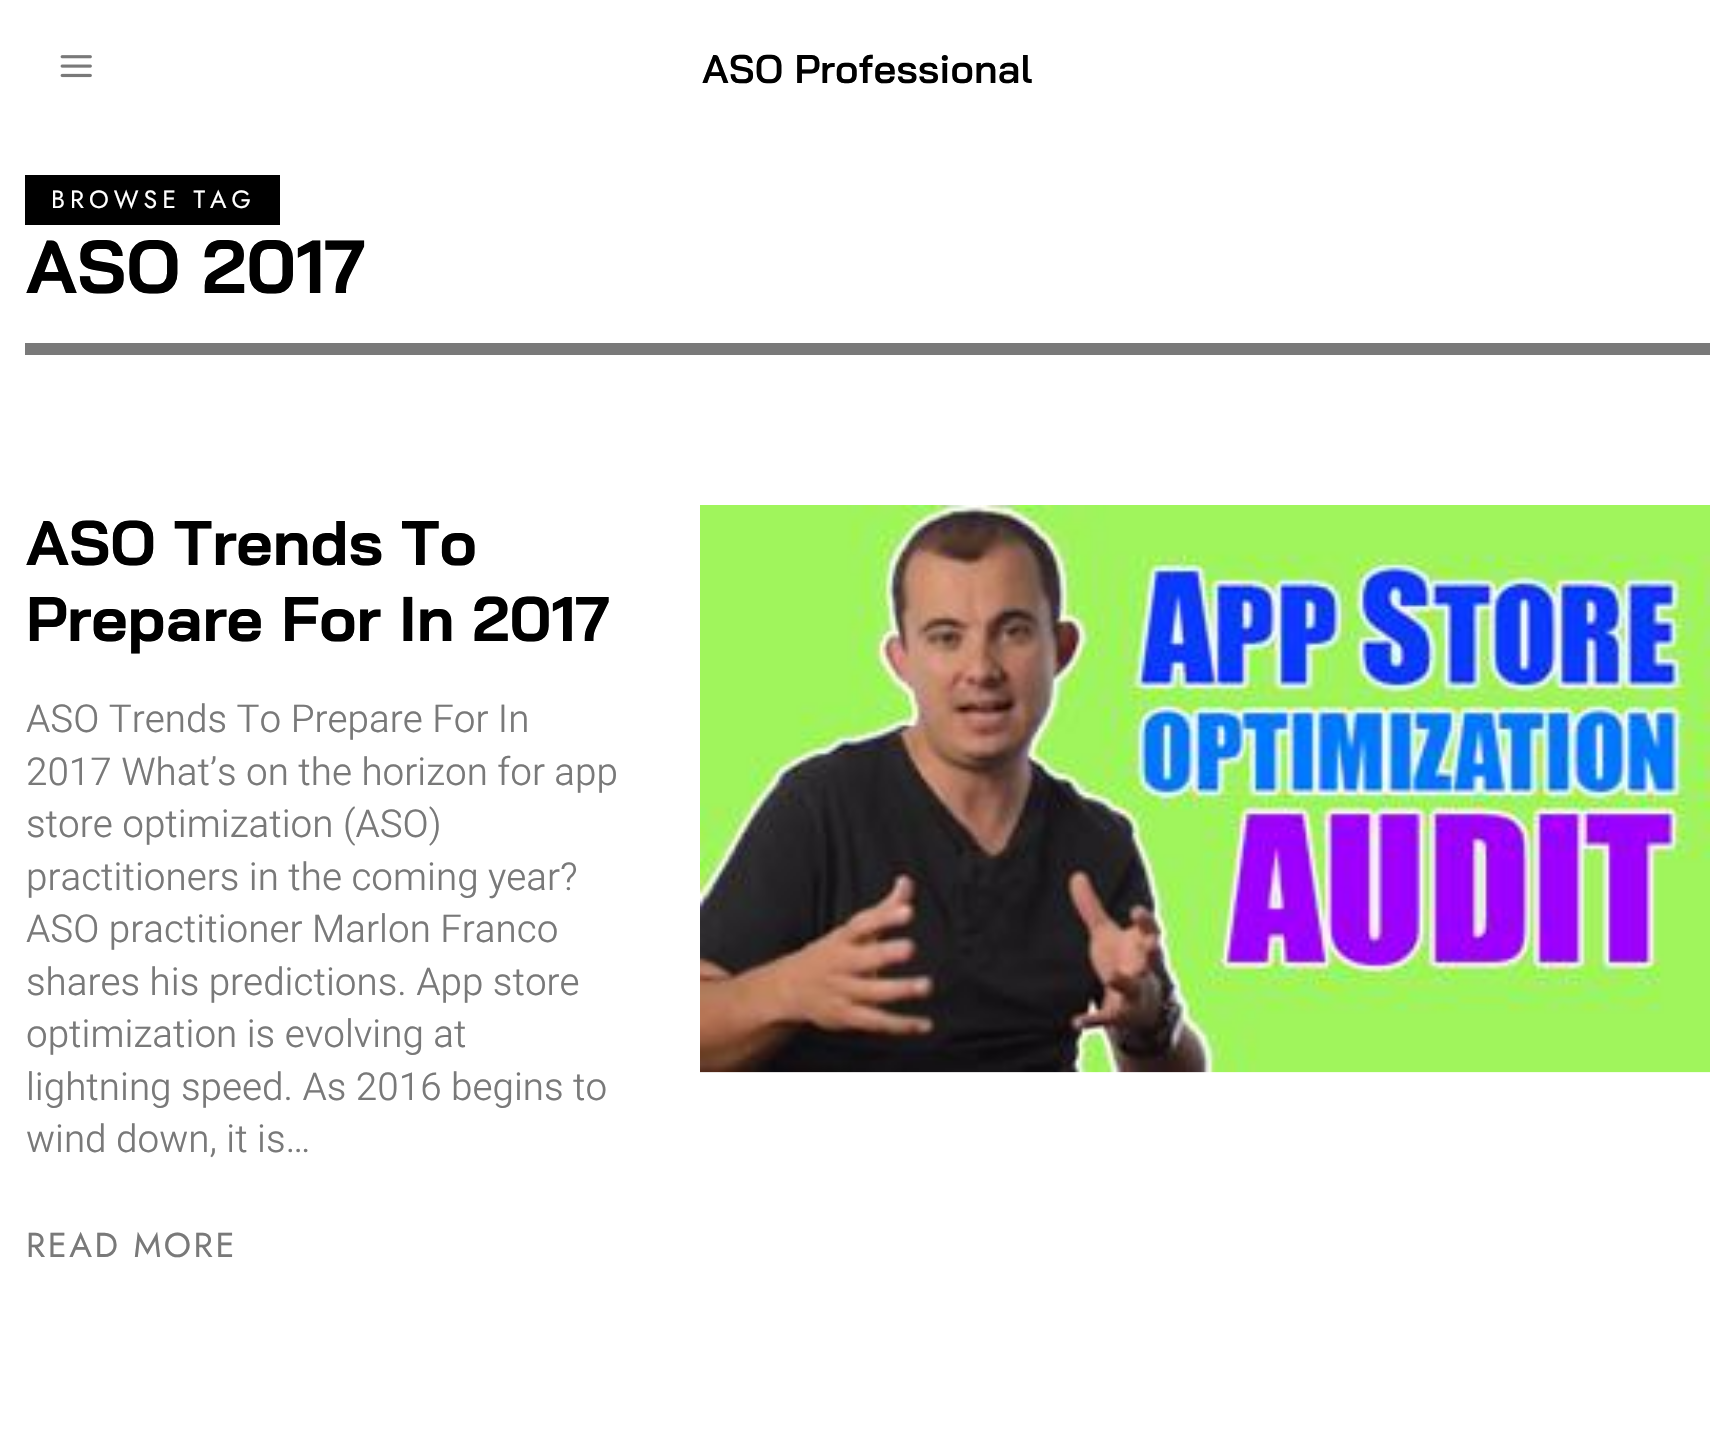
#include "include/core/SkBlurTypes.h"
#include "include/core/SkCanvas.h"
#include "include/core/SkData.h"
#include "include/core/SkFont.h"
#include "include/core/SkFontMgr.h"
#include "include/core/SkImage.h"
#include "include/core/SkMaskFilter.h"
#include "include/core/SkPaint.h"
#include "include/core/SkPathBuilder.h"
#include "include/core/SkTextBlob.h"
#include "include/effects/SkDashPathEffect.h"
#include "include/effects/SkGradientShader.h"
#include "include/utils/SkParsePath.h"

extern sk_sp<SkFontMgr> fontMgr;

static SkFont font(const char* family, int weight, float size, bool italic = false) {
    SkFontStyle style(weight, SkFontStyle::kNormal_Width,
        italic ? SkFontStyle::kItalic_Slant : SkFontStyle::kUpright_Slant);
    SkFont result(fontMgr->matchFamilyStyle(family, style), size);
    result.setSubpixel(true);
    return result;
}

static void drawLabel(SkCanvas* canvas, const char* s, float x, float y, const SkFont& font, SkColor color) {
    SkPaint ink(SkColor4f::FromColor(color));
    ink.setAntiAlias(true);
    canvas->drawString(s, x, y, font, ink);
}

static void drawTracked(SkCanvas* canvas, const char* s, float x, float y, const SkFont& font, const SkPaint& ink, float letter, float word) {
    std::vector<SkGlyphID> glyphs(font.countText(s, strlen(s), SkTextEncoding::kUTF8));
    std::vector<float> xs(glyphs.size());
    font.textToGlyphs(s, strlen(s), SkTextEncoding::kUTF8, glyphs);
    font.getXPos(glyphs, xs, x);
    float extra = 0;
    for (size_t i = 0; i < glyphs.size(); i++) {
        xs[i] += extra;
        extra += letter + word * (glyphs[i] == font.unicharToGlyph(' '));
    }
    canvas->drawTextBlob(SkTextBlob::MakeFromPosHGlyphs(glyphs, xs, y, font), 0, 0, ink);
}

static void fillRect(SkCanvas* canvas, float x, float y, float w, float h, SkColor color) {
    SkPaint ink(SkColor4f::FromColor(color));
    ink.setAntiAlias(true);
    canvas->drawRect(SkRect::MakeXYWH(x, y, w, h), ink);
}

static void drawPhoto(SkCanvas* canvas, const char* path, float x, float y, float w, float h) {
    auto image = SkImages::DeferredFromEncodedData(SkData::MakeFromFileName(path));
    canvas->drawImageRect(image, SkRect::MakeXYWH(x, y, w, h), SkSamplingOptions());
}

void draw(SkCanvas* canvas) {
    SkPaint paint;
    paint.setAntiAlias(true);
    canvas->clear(0xFFFFFFFF);
    drawPhoto(canvas, "assets/img1.png", 60, 55, 32, 23);
    SkFont font1 = font("Bai Jamjuree", 600, 40);
    drawLabel(canvas, "ASO Professional", 702, 83, font1, 0xFF000000);
    fillRect(canvas, 25, 343, 1685, 12, 0xFF797979);
    fillRect(canvas, 25, 175, 255, 50, 0xFF000000);
    SkFont font2 = font("Jost", 400, 25);
    paint.setColor(0xFFFFFFFF);
    drawTracked(canvas, "BROWSE TAG", 51, 208, font2, paint, 5, 0);
    SkFont font3 = font("Bai Jamjuree", 700, 75);
    drawLabel(canvas, "ASO 2017", 26, 293, font3, 0xFF000000);
    SkFont font4 = font("Bai Jamjuree", 700, 63);
    drawLabel(canvas, "ASO Trends To", 26, 565, font4, 0xFF000000);
    drawLabel(canvas, "Prepare For In 2017", 26, 641, font4, 0xFF000000);
    SkFont font5 = font("Heebo", 300, 38.5f);
    drawLabel(canvas, "ASO Trends To Prepare For In", 26, 732, font5, 0xFF797979);
    drawLabel(canvas, "2017 What’s on the horizon for app", 26, 785, font5, 0xFF797979);
    drawLabel(canvas, "store optimization (ASO)", 26, 837, font5, 0xFF797979);
    drawLabel(canvas, "practitioners in the coming year?", 26, 890, font5, 0xFF797979);
    drawLabel(canvas, "ASO practitioner Marlon Franco", 26, 942, font5, 0xFF797979);
    drawLabel(canvas, "shares his predictions. App store", 26, 995, font5, 0xFF797979);
    drawLabel(canvas, "optimization is evolving at", 26, 1047, font5, 0xFF797979);
    drawLabel(canvas, "lightning speed. As 2016 begins to", 26, 1100, font5, 0xFF797979);
    drawLabel(canvas, "wind down, it is…", 26, 1152, font5, 0xFF797979);
    SkFont font6 = font("Jost", 400, 34.5f);
    paint.setColor(0xFF797979);
    drawTracked(canvas, "READ MORE", 26, 1257, font6, paint, 2.5f, 0);
    drawPhoto(canvas, "assets/img2.png", 700, 505, 1010, 568);
}
